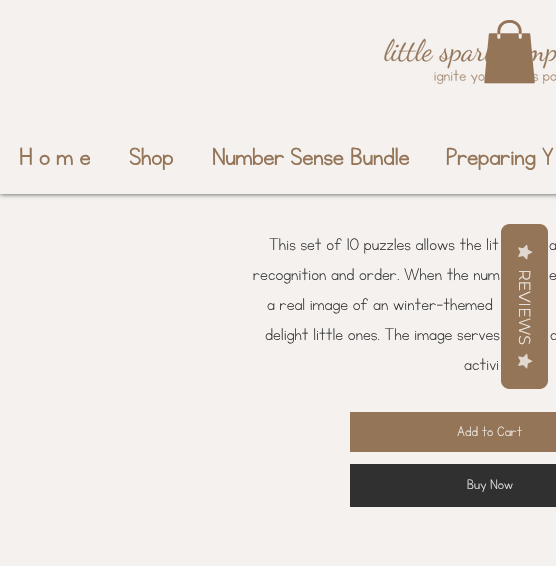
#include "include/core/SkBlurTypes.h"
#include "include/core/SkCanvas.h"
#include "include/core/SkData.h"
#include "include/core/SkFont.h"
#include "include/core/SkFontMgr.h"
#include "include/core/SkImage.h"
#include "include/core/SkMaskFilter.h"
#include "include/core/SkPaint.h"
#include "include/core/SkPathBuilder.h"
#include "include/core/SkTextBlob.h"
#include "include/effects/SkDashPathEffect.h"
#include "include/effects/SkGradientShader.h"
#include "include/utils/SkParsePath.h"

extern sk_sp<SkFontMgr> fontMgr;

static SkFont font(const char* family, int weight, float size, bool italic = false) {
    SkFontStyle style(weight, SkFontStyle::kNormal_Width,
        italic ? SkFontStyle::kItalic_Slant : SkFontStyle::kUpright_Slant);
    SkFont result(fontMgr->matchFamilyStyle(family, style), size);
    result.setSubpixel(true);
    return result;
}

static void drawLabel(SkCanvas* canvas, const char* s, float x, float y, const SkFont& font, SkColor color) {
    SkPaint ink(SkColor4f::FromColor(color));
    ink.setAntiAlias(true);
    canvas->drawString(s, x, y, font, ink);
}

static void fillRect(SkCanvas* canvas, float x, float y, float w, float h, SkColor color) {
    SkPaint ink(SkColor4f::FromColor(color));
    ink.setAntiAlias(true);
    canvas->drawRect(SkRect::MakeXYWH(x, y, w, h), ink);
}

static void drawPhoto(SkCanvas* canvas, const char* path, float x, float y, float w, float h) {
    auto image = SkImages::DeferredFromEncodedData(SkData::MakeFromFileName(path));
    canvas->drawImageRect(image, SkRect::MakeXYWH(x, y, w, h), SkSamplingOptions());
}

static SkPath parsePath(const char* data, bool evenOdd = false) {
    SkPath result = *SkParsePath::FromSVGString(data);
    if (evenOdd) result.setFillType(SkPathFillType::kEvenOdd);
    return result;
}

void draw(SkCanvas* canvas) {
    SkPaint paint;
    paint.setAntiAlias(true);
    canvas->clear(0xFFF4F1EE);
    paint.setColor(0xB3000000);
    paint.setMaskFilter(SkMaskFilter::MakeBlur(kNormal_SkBlurStyle, 2.5f));
    canvas->drawRect(SkRect::MakeXYWH(0, 0, 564, 194), paint);
    paint.setMaskFilter(nullptr);
    fillRect(canvas, 0, 0, 556, 194, 0xFFF4F1EE);
    drawPhoto(canvas, "assets/img2.png", 384, 38, 172, 47);
    drawPhoto(canvas, "assets/img1.png", 484, 20, 51, 64);
    SkFont font1 = font("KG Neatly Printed", 700, 28);
    drawLabel(canvas, "H o m e", 19, 165, font1, 0xFF957558);
    drawLabel(canvas, "Shop", 129, 165, font1, 0xFF957558);
    drawLabel(canvas, "Number Sense Bundle", 212, 165, font1, 0xFF957558);
    drawLabel(canvas, "Preparing Y", 446, 165, font1, 0xFF957558);
    SkFont font2 = font("KG Neatly Printed", 400, 20);
    drawLabel(canvas, "This set of 10 puzzles allows the lit", 269, 250, font2, 0xFF313030);
    drawLabel(canvas, "a", 549, 250, font2, 0xFF313030);
    drawLabel(canvas, "recognition and order. When the num", 253, 280, font2, 0xFF313030);
    drawLabel(canvas, "e", 549, 280, font2, 0xFF313030);
    drawLabel(canvas, "a real image of an winter-themed", 267, 310, font2, 0xFF313030);
    drawLabel(canvas, "delight little ones. The image serves", 265, 340, font2, 0xFF313030);
    drawLabel(canvas, "c", 550, 340, font2, 0xFF313030);
    drawLabel(canvas, "activi", 464, 370, font2, 0xFF313030);
    fillRect(canvas, 350, 412, 206, 40, 0xFF957558);
    SkFont font3 = font("KG Neatly Printed", 400, 16);
    drawLabel(canvas, "Add to Cart", 457, 436, font3, 0xFFF4F1EE);
    fillRect(canvas, 350, 464, 206, 43, 0xFF313030);
    drawLabel(canvas, "Buy Now", 467, 489, font3, 0xFFF4F1EE);
    paint.setColor(0xFF957558);
    canvas->drawPath(parsePath("M548 232V381C548 385 544 389 540 389H509C505 389 501 385 501 381V232C501 228 505 224 509 224H540C544 224 548 228 548 232Z"), paint);
    drawPhoto(canvas, "assets/img3.png", 518, 244, 15, 16);
    SkFont font4 = font("Montserrat", 100, 16);
    canvas->save();
    canvas->rotate(90, 519, 269);
    drawLabel(canvas, "REVIEWS", 519, 269, font4, 0xFFF4F1EE);
    canvas->restore();
    drawPhoto(canvas, "assets/img3.png", 518, 353, 15, 16);
}
